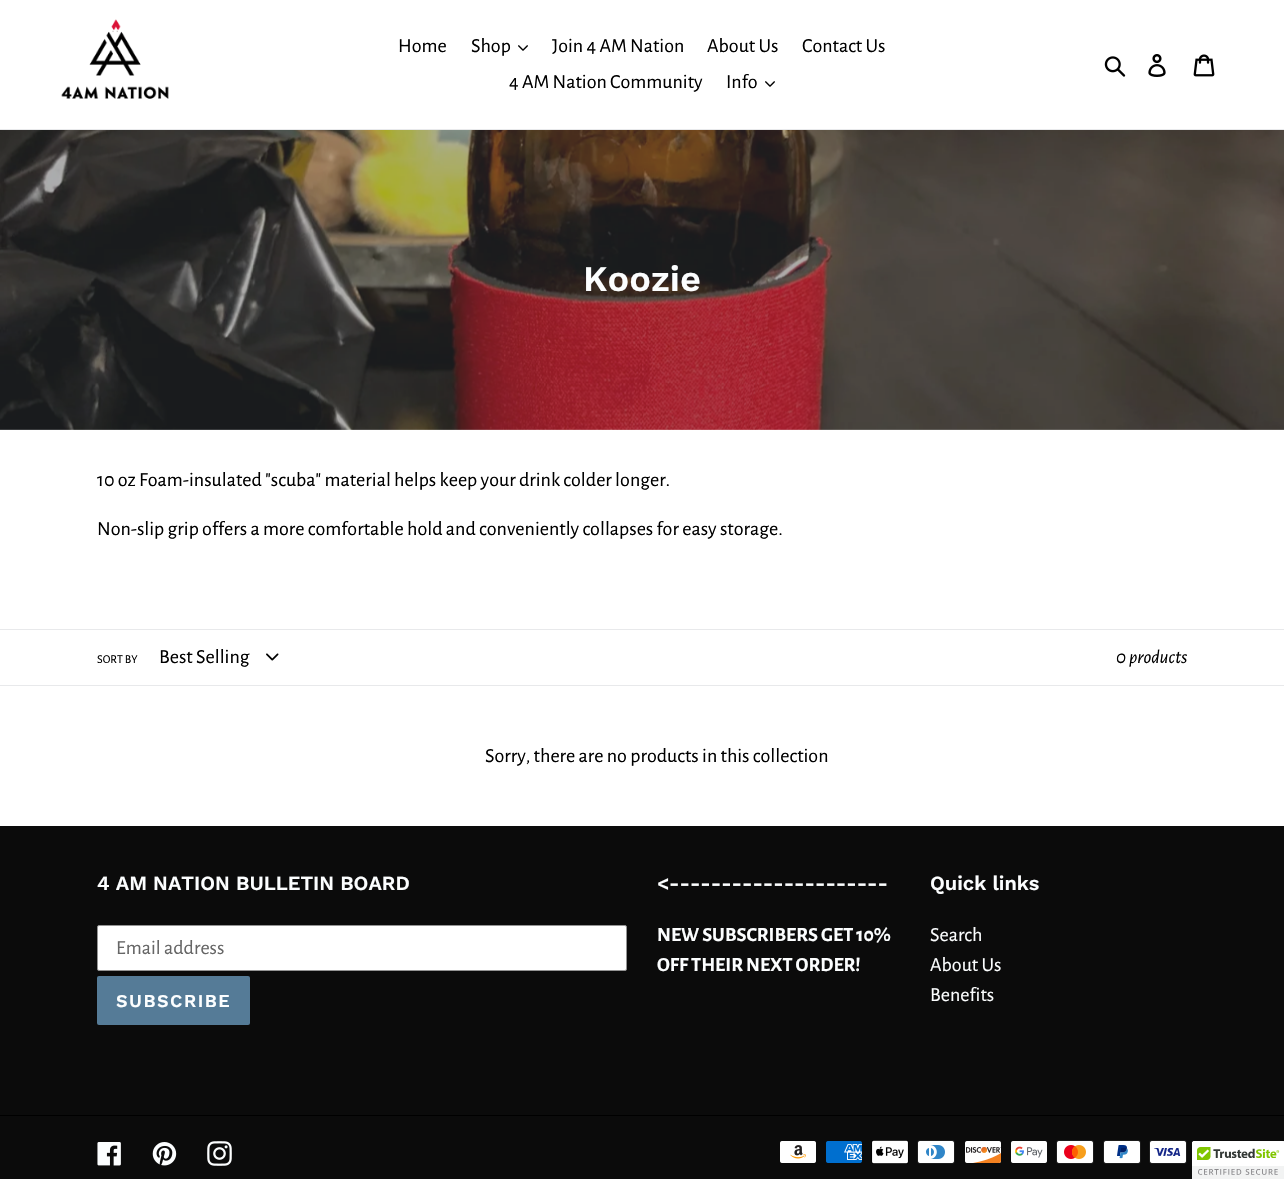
#include "include/core/SkBlurTypes.h"
#include "include/core/SkCanvas.h"
#include "include/core/SkData.h"
#include "include/core/SkFont.h"
#include "include/core/SkFontMgr.h"
#include "include/core/SkImage.h"
#include "include/core/SkMaskFilter.h"
#include "include/core/SkPaint.h"
#include "include/core/SkPathBuilder.h"
#include "include/core/SkTextBlob.h"
#include "include/effects/SkDashPathEffect.h"
#include "include/effects/SkGradientShader.h"
#include "include/utils/SkParsePath.h"

extern sk_sp<SkFontMgr> fontMgr;

static SkFont font(const char* family, int weight, float size, bool italic = false) {
    SkFontStyle style(weight, SkFontStyle::kNormal_Width,
        italic ? SkFontStyle::kItalic_Slant : SkFontStyle::kUpright_Slant);
    SkFont result(fontMgr->matchFamilyStyle(family, style), size);
    result.setSubpixel(true);
    return result;
}

static void drawLabel(SkCanvas* canvas, const char* s, float x, float y, const SkFont& font, SkColor color) {
    SkPaint ink(SkColor4f::FromColor(color));
    ink.setAntiAlias(true);
    canvas->drawString(s, x, y, font, ink);
}

static void drawTracked(SkCanvas* canvas, const char* s, float x, float y, const SkFont& font, const SkPaint& ink, float letter, float word) {
    std::vector<SkGlyphID> glyphs(font.countText(s, strlen(s), SkTextEncoding::kUTF8));
    std::vector<float> xs(glyphs.size());
    font.textToGlyphs(s, strlen(s), SkTextEncoding::kUTF8, glyphs);
    font.getXPos(glyphs, xs, x);
    float extra = 0;
    for (size_t i = 0; i < glyphs.size(); i++) {
        xs[i] += extra;
        extra += letter + word * (glyphs[i] == font.unicharToGlyph(' '));
    }
    canvas->drawTextBlob(SkTextBlob::MakeFromPosHGlyphs(glyphs, xs, y, font), 0, 0, ink);
}

static void fillRect(SkCanvas* canvas, float x, float y, float w, float h, SkColor color) {
    SkPaint ink(SkColor4f::FromColor(color));
    ink.setAntiAlias(true);
    canvas->drawRect(SkRect::MakeXYWH(x, y, w, h), ink);
}

static void fillRRect(SkCanvas* canvas, float x, float y, float w, float h, float radius, SkColor color) {
    SkPaint ink(SkColor4f::FromColor(color));
    ink.setAntiAlias(true);
    canvas->drawRoundRect(SkRect::MakeXYWH(x, y, w, h), radius, radius, ink);
}

static void drawPhoto(SkCanvas* canvas, const char* path, float x, float y, float w, float h) {
    auto image = SkImages::DeferredFromEncodedData(SkData::MakeFromFileName(path));
    canvas->drawImageRect(image, SkRect::MakeXYWH(x, y, w, h), SkSamplingOptions());
}

static SkPath parsePath(const char* data, bool evenOdd = false) {
    SkPath result = *SkParsePath::FromSVGString(data);
    if (evenOdd) result.setFillType(SkPathFillType::kEvenOdd);
    return result;
}

void draw(SkCanvas* canvas) {
    SkPaint paint;
    paint.setAntiAlias(true);
    canvas->clear(0xFFFFFFFF);
    fillRect(canvas, 0, 129, 1284, 1, 0xFFE8E9EB);
    drawPhoto(canvas, "assets/img1.png", 61, 19, 108, 80);
    SkFont font1 = font("Alegreya Sans", 400, 20);
    drawLabel(canvas, "Home", 398, 52, font1, 0xFF000000);
    drawLabel(canvas, "Shop", 471, 52, font1, 0xFF000000);
    drawPhoto(canvas, "assets/img2.png", 518, 45, 10, 6);
    drawLabel(canvas, "Join 4 AM Nation", 552, 52, font1, 0xFF000000);
    drawLabel(canvas, "About Us", 707, 52, font1, 0xFF000000);
    drawLabel(canvas, "Contact Us", 802, 52, font1, 0xFF000000);
    drawLabel(canvas, "4 AM Nation Community", 509, 88, font1, 0xFF000000);
    drawLabel(canvas, "Info", 726, 88, font1, 0xFF000000);
    drawPhoto(canvas, "assets/img2.png", 765, 81, 10, 6);
    drawPhoto(canvas, "assets/img3.png", 1104, 56, 22, 21);
    drawPhoto(canvas, "assets/img4.png", 1148, 54, 18, 23);
    drawPhoto(canvas, "assets/img5.png", 1193, 54, 22, 23);
    drawPhoto(canvas, "assets/img6.png", 0, 130, 1284, 300);
    SkFont font2 = font("Work Sans", 600, 36);
    drawLabel(canvas, "Koozie", 583, 291, font2, 0xFFFCFEFF);
    drawLabel(canvas, "10 oz Foam-insulated \"scuba\" material helps keep your drink colder longer.", 97, 486, font1, 0xFF000000);
    drawLabel(canvas, "Non-slip grip offers a more comfortable hold and conveniently collapses for easy storage.", 97, 535, font1, 0xFF000000);
    fillRect(canvas, 0, 629, 1284, 1, 0xFFE8E9EB);
    fillRect(canvas, 0, 685, 1284, 1, 0xFFE8E9EB);
    SkFont font3 = font("Alegreya Sans", 400, 12);
    drawLabel(canvas, "SORT BY", 97, 663, font3, 0xFF000000);
    drawLabel(canvas, "Best Selling", 159, 663, font1, 0xFF000000);
    drawPhoto(canvas, "assets/img7.png", 266, 653, 13, 8);
    SkFont font4 = font("Alegreya Sans", 400, 19, true);
    drawLabel(canvas, "0 products", 1116, 663, font4, 0xFF000000);
    drawLabel(canvas, "Sorry, there are no products in this collection", 485, 762, font1, 0xFF000000);
    fillRect(canvas, 0, 826, 1284, 353, 0xFF0B0B0B);
    SkFont font5 = font("Work Sans", 600, 20);
    drawLabel(canvas, "4 AM NATION BULLETIN BOARD", 97, 890, font5, 0xFFFCFEFF);
    paint.setColor(0xFFFFFFFF);
    canvas->drawRoundRect(SkRect::MakeXYWH(97.5f, 925.5f, 529, 45), 1.5f, 1.5f, paint);
    paint.setStroke(true);
    paint.setStrokeWidth(1);
    paint.setColor(0xFF949494);
    canvas->drawRoundRect(SkRect::MakeXYWH(97.5f, 925.5f, 529, 45), 1.5f, 1.5f, paint);
    drawLabel(canvas, "Email address", 116, 954, font1, 0xFF666666);
    fillRRect(canvas, 97, 976, 153, 49, 2, 0xFF557B97);
    SkFont font6 = font("Work Sans", 600, 18);
    paint.setStroke(false);
    paint.setColor(0xFFFCFEFF);
    drawTracked(canvas, "SUBSCRIBE", 116, 1007, font6, paint, 1.5f, 0);
    drawLabel(canvas, "<---------------------", 657, 890, font5, 0xFFFCFEFF);
    SkFont font7 = font("Alegreya Sans", 700, 20);
    drawLabel(canvas, "NEW SUBSCRIBERS GET 10%", 657, 941, font7, 0xFFFCFEFF);
    drawLabel(canvas, "OFF THEIR NEXT ORDER!", 657, 971, font7, 0xFFFCFEFF);
    drawLabel(canvas, "Quick links", 930, 890, font5, 0xFFFCFEFF);
    drawLabel(canvas, "Search", 930, 941, font1, 0xFFFCFEFF);
    drawLabel(canvas, "About Us", 930, 971, font1, 0xFFFCFEFF);
    drawLabel(canvas, "Benefits", 930, 1001, font1, 0xFFFCFEFF);
    fillRect(canvas, 0, 1115, 1284, 1, 0xFF000000);
    drawPhoto(canvas, "assets/img8.png", 97, 1142, 24, 24);
    drawPhoto(canvas, "assets/img9.png", 152, 1142, 25, 24);
    drawPhoto(canvas, "assets/img10.png", 207, 1141, 25, 25);
    drawPhoto(canvas, "assets/img11.png", 780, 1141, 36, 22);
    drawPhoto(canvas, "assets/img12.png", 826, 1141, 36, 22);
    drawPhoto(canvas, "assets/img13.png", 871, 1140, 38, 24);
    drawPhoto(canvas, "assets/img14.png", 917, 1140, 38, 24);
    drawPhoto(canvas, "assets/img15.png", 965, 1141, 36, 22);
    drawPhoto(canvas, "assets/img16.png", 1011, 1141, 36, 22);
    drawPhoto(canvas, "assets/img17.png", 1056, 1140, 38, 24);
    drawPhoto(canvas, "assets/img18.png", 1103, 1140, 38, 24);
    drawPhoto(canvas, "assets/img19.png", 1149, 1140, 38, 24);
    paint.setColor(0xFFFFFFFF);
    canvas->drawPath(parsePath("M1194 1141H1284V1179H1192V1143C1192 1142 1193 1141 1194 1141Z"), paint);
    drawPhoto(canvas, "assets/img20.png", 1192, 1141, 92, 38);
}
